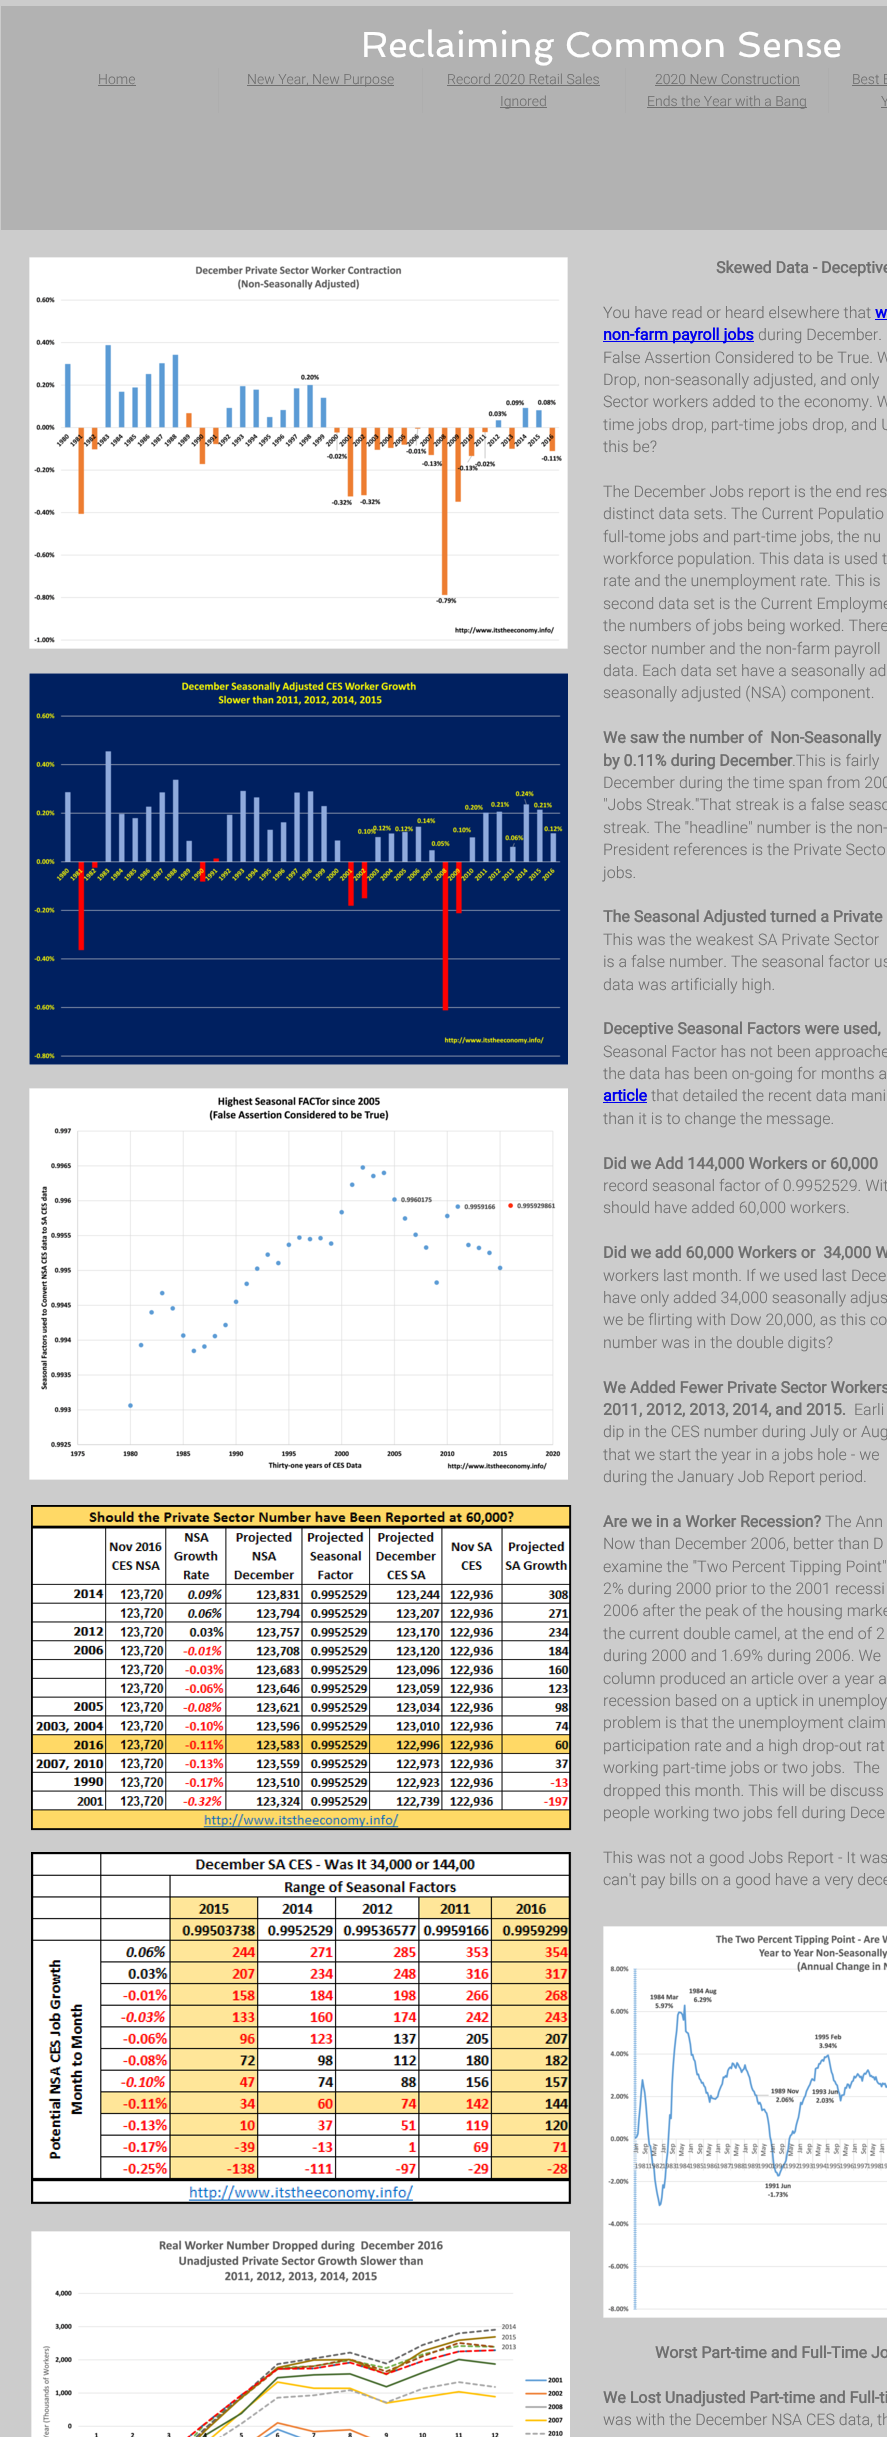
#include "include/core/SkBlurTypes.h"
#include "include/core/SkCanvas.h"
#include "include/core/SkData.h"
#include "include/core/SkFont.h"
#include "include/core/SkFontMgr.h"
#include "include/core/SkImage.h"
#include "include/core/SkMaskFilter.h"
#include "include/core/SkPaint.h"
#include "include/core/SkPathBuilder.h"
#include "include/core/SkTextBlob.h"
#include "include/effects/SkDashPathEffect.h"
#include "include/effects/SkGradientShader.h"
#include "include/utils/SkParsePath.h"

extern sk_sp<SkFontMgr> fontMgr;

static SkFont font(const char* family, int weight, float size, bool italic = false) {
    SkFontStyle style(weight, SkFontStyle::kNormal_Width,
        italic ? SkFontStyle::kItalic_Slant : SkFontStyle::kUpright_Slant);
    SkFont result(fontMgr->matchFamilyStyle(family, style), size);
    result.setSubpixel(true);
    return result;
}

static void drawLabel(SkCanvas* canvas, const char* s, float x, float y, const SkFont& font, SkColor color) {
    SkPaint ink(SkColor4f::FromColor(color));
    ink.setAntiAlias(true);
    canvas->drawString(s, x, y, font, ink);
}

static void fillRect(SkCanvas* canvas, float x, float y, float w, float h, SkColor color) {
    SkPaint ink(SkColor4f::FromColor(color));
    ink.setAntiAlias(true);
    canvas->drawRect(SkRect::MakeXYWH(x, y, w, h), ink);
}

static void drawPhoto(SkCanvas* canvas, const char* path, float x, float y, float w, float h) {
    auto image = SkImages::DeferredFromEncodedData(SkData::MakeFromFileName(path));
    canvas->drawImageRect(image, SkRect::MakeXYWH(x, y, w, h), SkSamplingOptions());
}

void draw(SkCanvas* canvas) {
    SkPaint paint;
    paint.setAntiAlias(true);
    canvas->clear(0xFFCCCCCC);
    fillRect(canvas, 1, 6, 886, 224, 0xFFB2B2B2);
    SkFont font1 = font("Spinnaker", 400, 36);
    drawLabel(canvas, "Reclaiming Common Sense", 361, 57, font1, 0xFFFFFFFF);
    fillRect(canvas, 218, 68, 1, 45, 0xFFAEAEAE);
    SkFont font2 = font("Roboto", 300, 14);
    drawLabel(canvas, "Home", 98, 84, font2, 0xFF6F6F6F);
    fillRect(canvas, 98, 85, 38, 1, 0xFF6F6F6F);
    fillRect(canvas, 422, 68, 1, 45, 0xFFAEAEAE);
    fillRect(canvas, 247, 85, 147, 1, 0xFF6F6F6F);
    drawLabel(canvas, "New Year, New Purpose", 247, 84, font2, 0xFF6F6F6F);
    fillRect(canvas, 625, 68, 1, 45, 0xFFAEAEAE);
    drawLabel(canvas, "Record 2020 Retail Sales", 447, 84, font2, 0xFF6F6F6F);
    fillRect(canvas, 447, 85, 153, 1, 0xFF6F6F6F);
    fillRect(canvas, 500, 107, 47, 1, 0xFF6F6F6F);
    drawLabel(canvas, "Ignored", 500, 106, font2, 0xFF6F6F6F);
    fillRect(canvas, 828, 68, 1, 45, 0xFFAEAEAE);
    drawLabel(canvas, "2020 New Construction", 655, 84, font2, 0xFF6F6F6F);
    fillRect(canvas, 655, 85, 145, 1, 0xFF6F6F6F);
    fillRect(canvas, 647, 107, 160, 1, 0xFF6F6F6F);
    drawLabel(canvas, "Ends the Year with a Bang", 647, 106, font2, 0xFF6F6F6F);
    drawLabel(canvas, "Best E", 852, 84, font2, 0xFF6F6F6F);
    fillRect(canvas, 852, 85, 35, 1, 0xFF6F6F6F);
    drawLabel(canvas, "Y", 881, 106, font2, 0xFF6F6F6F);
    fillRect(canvas, 881, 107, 6, 1, 0xFF6F6F6F);
    drawPhoto(canvas, "assets/img1.png", 29, 257, 539, 392);
    SkFont font3 = font("Roboto", 700, 16);
    drawLabel(canvas, "Skewed Data - Deceptive", 716, 273, font3, 0xFF6F6F6F);
    SkFont font4 = font("Roboto", 300, 16);
    drawLabel(canvas, "You have read or heard elsewhere that", 603, 318, font4, 0xFF6F6F6F);
    drawLabel(canvas, "w", 875, 318, font3, 0xFF0000EE);
    fillRect(canvas, 875, 319, 12, 1, 0xFF0000EE);
    fillRect(canvas, 603, 341, 151, 1, 0xFF0000EE);
    drawLabel(canvas, "non-farm payroll jobs", 603, 340, font3, 0xFF0000EE);
    drawLabel(canvas, "during December.", 758, 340, font4, 0xFF6F6F6F);
    drawLabel(canvas, "False Assertion Considered to be True. W", 603, 363, font4, 0xFF6F6F6F);
    drawLabel(canvas, "Drop, non-seasonally adjusted, and only", 603, 385, font4, 0xFF6F6F6F);
    drawLabel(canvas, "Sector workers added to the economy. W", 603, 407, font4, 0xFF6F6F6F);
    drawLabel(canvas, "time jobs drop, part-time jobs drop, and U", 603, 430, font4, 0xFF6F6F6F);
    drawLabel(canvas, "this be?", 603, 452, font4, 0xFF6F6F6F);
    drawLabel(canvas, "The December Jobs report is the end res", 603, 497, font4, 0xFF6F6F6F);
    drawLabel(canvas, "distinct data sets. The Current Populatio", 603, 519, font4, 0xFF6F6F6F);
    drawLabel(canvas, "full-tome jobs and part-time jobs, the nu", 603, 542, font4, 0xFF6F6F6F);
    drawLabel(canvas, "workforce population. This data is used t", 603, 564, font4, 0xFF6F6F6F);
    drawLabel(canvas, "rate and the unemployment rate. This is", 603, 586, font4, 0xFF6F6F6F);
    drawLabel(canvas, "second data set is the Current Employme", 603, 609, font4, 0xFF6F6F6F);
    drawLabel(canvas, "the numbers of jobs being worked. There", 603, 631, font4, 0xFF6F6F6F);
    drawLabel(canvas, "sector number and the non-farm payroll", 603, 654, font4, 0xFF6F6F6F);
    drawLabel(canvas, "data. Each data set have a seasonally ad", 603, 676, font4, 0xFF6F6F6F);
    drawLabel(canvas, "seasonally adjusted (NSA) component.", 603, 698, font4, 0xFF6F6F6F);
    drawLabel(canvas, "We saw the number of  Non-Seasonally", 603, 743, font3, 0xFF6F6F6F);
    drawLabel(canvas, "by 0.11% during December", 603, 766, font3, 0xFF6F6F6F);
    drawLabel(canvas, ".This is fairly", 792, 766, font4, 0xFF6F6F6F);
    drawLabel(canvas, "December during the time span from 200", 603, 788, font4, 0xFF6F6F6F);
    drawLabel(canvas, "\"Jobs Streak.\"That streak is a false seaso", 603, 810, font4, 0xFF6F6F6F);
    drawLabel(canvas, "streak. The \"headline\" number is the non-", 603, 833, font4, 0xFF6F6F6F);
    drawLabel(canvas, "President references is the Private Secto", 603, 855, font4, 0xFF6F6F6F);
    drawLabel(canvas, "jobs.", 603, 878, font4, 0xFF6F6F6F);
    drawLabel(canvas, "The Seasonal Adjusted turned a Private", 603, 922, font3, 0xFF6F6F6F);
    drawLabel(canvas, "This was the weakest SA Private Sector", 603, 945, font4, 0xFF6F6F6F);
    drawLabel(canvas, "is a false number. The seasonal factor us", 603, 967, font4, 0xFF6F6F6F);
    drawLabel(canvas, "data was artificially high.", 603, 990, font4, 0xFF6F6F6F);
    drawLabel(canvas, "Deceptive Seasonal Factors were used,", 603, 1034, font3, 0xFF6F6F6F);
    drawLabel(canvas, "Seasonal Factor has not been approache", 603, 1057, font4, 0xFF6F6F6F);
    drawLabel(canvas, "the data has been on-going for months a", 603, 1079, font4, 0xFF6F6F6F);
    drawLabel(canvas, "article", 603, 1101, font3, 0xFF0000EE);
    fillRect(canvas, 603, 1102, 44, 1, 0xFF0000EE);
    drawLabel(canvas, "that detailed the recent data mani", 651, 1101, font4, 0xFF6F6F6F);
    drawLabel(canvas, "than it is to change the message.", 603, 1124, font4, 0xFF6F6F6F);
    drawLabel(canvas, "Did we Add 144,000 Workers or 60,000", 603, 1169, font3, 0xFF6F6F6F);
    drawLabel(canvas, "record seasonal factor of 0.9952529. Wit", 603, 1191, font4, 0xFF6F6F6F);
    drawLabel(canvas, "should have added 60,000 workers.", 603, 1213, font4, 0xFF6F6F6F);
    drawLabel(canvas, "Did we add 60,000 Workers or  34,000 W", 603, 1258, font3, 0xFF6F6F6F);
    drawLabel(canvas, "workers last month. If we used last Dece", 603, 1281, font4, 0xFF6F6F6F);
    drawLabel(canvas, "have only added 34,000 seasonally adjus", 603, 1303, font4, 0xFF6F6F6F);
    drawLabel(canvas, "we be flirting with Dow 20,000, as this co", 603, 1325, font4, 0xFF6F6F6F);
    drawLabel(canvas, "number was in the double digits?", 603, 1348, font4, 0xFF6F6F6F);
    drawLabel(canvas, "We Added Fewer Private Sector Workers", 603, 1393, font3, 0xFF6F6F6F);
    drawLabel(canvas, "2011, 2012, 2013, 2014, and 2015.", 603, 1415, font3, 0xFF6F6F6F);
    drawLabel(canvas, "Earli", 854, 1415, font4, 0xFF6F6F6F);
    drawLabel(canvas, "dip in the CES number during July or Aug", 603, 1437, font4, 0xFF6F6F6F);
    drawLabel(canvas, "that we start the year in a jobs hole - we", 603, 1460, font4, 0xFF6F6F6F);
    drawLabel(canvas, "during the January Job Report period.", 603, 1482, font4, 0xFF6F6F6F);
    drawLabel(canvas, "Are we in a Worker Recession?", 603, 1527, font3, 0xFF6F6F6F);
    drawLabel(canvas, "The Ann", 825, 1527, font4, 0xFF6F6F6F);
    drawLabel(canvas, "Now than December 2006, better than D", 603, 1549, font4, 0xFF6F6F6F);
    drawLabel(canvas, "examine the \"Two Percent Tipping Point\"", 603, 1572, font4, 0xFF6F6F6F);
    drawLabel(canvas, "2% during 2000 prior to the 2001 recessi", 603, 1594, font4, 0xFF6F6F6F);
    drawLabel(canvas, "2006 after the peak of the housing marke", 603, 1616, font4, 0xFF6F6F6F);
    drawLabel(canvas, "the current double camel, at the end of 2", 603, 1639, font4, 0xFF6F6F6F);
    drawLabel(canvas, "during 2000 and 1.69% during 2006. We", 603, 1661, font4, 0xFF6F6F6F);
    drawLabel(canvas, "column produced an article over a year a", 603, 1684, font4, 0xFF6F6F6F);
    drawLabel(canvas, "recession based on a uptick in unemploy", 603, 1706, font4, 0xFF6F6F6F);
    drawLabel(canvas, "problem is that the unemployment claim", 603, 1728, font4, 0xFF6F6F6F);
    drawLabel(canvas, "participation rate and a high drop-out rat", 603, 1751, font4, 0xFF6F6F6F);
    drawLabel(canvas, "working part-time jobs or two jobs.  The", 603, 1773, font4, 0xFF6F6F6F);
    drawLabel(canvas, "dropped this month. This will be discuss", 603, 1796, font4, 0xFF6F6F6F);
    drawLabel(canvas, "people working two jobs fell during Dece", 603, 1818, font4, 0xFF6F6F6F);
    drawLabel(canvas, "This was not a good Jobs Report - It was", 603, 1863, font4, 0xFF6F6F6F);
    drawLabel(canvas, "can't pay bills on a good have a very dece", 603, 1885, font4, 0xFF6F6F6F);
    drawPhoto(canvas, "assets/img2.png", 29, 673, 539, 392);
    drawPhoto(canvas, "assets/img3.png", 29, 1088, 539, 392);
    drawPhoto(canvas, "assets/img4.png", 31, 1505, 541, 326);
    drawPhoto(canvas, "assets/img5.png", 31, 1852, 541, 353);
    drawPhoto(canvas, "assets/img6.png", 603, 1926, 284, 392);
    drawPhoto(canvas, "assets/img7.png", 31, 2231, 539, 206);
    drawLabel(canvas, "Worst Part-time and Full-Time Jo", 655, 2358, font3, 0xFF6F6F6F);
    drawLabel(canvas, "We Lost Unadjusted Part-time and Full-ti", 603, 2403, font3, 0xFF6F6F6F);
    drawLabel(canvas, "was with the December NSA CES data, th", 603, 2425, font4, 0xFF6F6F6F);
}
